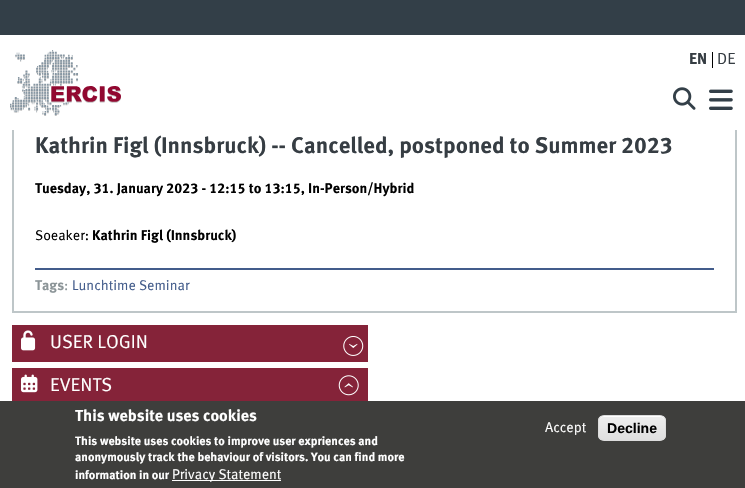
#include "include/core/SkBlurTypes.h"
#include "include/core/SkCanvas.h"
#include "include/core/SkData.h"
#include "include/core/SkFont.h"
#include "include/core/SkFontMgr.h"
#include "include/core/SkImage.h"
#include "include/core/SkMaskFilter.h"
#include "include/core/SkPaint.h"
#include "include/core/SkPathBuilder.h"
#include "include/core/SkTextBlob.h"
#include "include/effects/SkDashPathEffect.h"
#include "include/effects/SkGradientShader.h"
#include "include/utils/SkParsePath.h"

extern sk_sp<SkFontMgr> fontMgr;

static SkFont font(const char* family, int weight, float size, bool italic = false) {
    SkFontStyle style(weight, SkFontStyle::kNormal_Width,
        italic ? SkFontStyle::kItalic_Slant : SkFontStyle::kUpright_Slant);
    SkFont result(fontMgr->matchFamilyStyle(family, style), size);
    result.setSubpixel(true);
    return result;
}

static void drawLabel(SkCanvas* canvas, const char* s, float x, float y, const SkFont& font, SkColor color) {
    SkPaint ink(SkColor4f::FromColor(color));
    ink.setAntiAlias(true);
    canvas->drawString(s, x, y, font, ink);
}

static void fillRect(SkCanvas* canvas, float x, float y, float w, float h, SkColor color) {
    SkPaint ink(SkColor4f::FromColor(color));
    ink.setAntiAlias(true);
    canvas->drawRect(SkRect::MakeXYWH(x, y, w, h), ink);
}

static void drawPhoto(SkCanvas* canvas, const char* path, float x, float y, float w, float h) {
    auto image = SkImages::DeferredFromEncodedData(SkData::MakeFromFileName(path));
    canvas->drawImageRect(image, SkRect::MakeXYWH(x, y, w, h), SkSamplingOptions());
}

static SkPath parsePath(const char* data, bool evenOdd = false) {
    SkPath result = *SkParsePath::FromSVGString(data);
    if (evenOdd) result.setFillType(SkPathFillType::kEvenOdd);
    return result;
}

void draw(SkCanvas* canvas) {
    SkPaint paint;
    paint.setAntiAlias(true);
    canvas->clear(0xFFFFFFFF);
    fillRect(canvas, 0, 0, 745, 35, 0xFF333F48);
    paint.setStroke(true);
    paint.setStrokeWidth(2);
    paint.setColor(0xFFBEC6C8);
    canvas->drawRect(SkRect::MakeXYWH(13, 72, 723, 240), paint);
    fillRect(canvas, 12, 71, 725, 59, 0xFFFFFFFF);
    drawPhoto(canvas, "assets/img1.png", 10, 50, 111, 66);
    SkFont font1 = font("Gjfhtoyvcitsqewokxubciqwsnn", 700, 16);
    drawLabel(canvas, "EN", 689, 64, font1, 0xFF363D43);
    fillRect(canvas, 712, 52, 1, 16, 0xFF000000);
    SkFont font2 = font("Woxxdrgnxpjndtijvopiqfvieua", 400, 16);
    drawLabel(canvas, "DE", 717, 64, font2, 0xFF363D43);
    drawPhoto(canvas, "assets/img2.png", 673, 87, 23, 23);
    drawPhoto(canvas, "assets/img3.png", 709, 89, 24, 21);
    SkFont font3 = font("Gjfhtoyvcitsqewokxubciqwsnn", 700, 22.5f);
    drawLabel(canvas, "Kathrin Figl (Innsbruck) -- Cancelled, postponed to Summer 2023", 35, 153, font3, 0xFF363D43);
    SkFont font4 = font("Gjfhtoyvcitsqewokxubciqwsnn", 700, 14.05f);
    drawLabel(canvas, "Tuesday, 31. January 2023 - 12:15 to 13:15, In-Person/Hybrid", 35, 193, font4, 0xFF000000);
    SkFont font5 = font("Woxxdrgnxpjndtijvopiqfvieua", 400, 14.05f);
    drawLabel(canvas, "Soeaker:", 35, 240, font5, 0xFF000000);
    drawLabel(canvas, "Kathrin Figl (Innsbruck)", 92, 240, font4, 0xFF000000);
    fillRect(canvas, 35, 268, 679, 2, 0xFF435C8B);
    drawLabel(canvas, "Tags", 35, 290, font4, 0xFF8C9598);
    drawLabel(canvas, ":", 64, 290, font5, 0xFF8C9598);
    drawLabel(canvas, "Lunchtime Seminar", 72, 290, font5, 0xFF435C8B);
    fillRect(canvas, 12, 325, 356, 37, 0xFF852339);
    drawPhoto(canvas, "assets/img4.png", 21, 330, 15, 21);
    SkFont font6 = font("Woxxdrgnxpjndtijvopiqfvieua", 400, 18.75f);
    drawLabel(canvas, "USER LOGIN", 50, 348, font6, 0xFFFFFFFF);
    drawPhoto(canvas, "assets/img5.png", 343, 336, 21, 20);
    fillRect(canvas, 12, 368, 356, 33, 0xFF852339);
    drawPhoto(canvas, "assets/img6.png", 21, 374, 17, 19);
    drawLabel(canvas, "EVENTS", 50, 391, font6, 0xFFFFFFFF);
    drawPhoto(canvas, "assets/img7.png", 338, 375, 21, 21);
    fillRect(canvas, 0, 401, 745, 87, 0xFF3E3E3C);
    drawLabel(canvas, "This website uses cookies", 75, 421, font1, 0xFFFFFFFF);
    SkFont font7 = font("Gjfhtoyvcitsqewokxubciqwsnn", 700, 12);
    drawLabel(canvas, "This website uses cookies to improve user expriences and", 75, 445, font7, 0xFFFFFFFF);
    drawLabel(canvas, "anonymously track the behaviour of visitors. You can find more", 75, 461, font7, 0xFFFFFFFF);
    drawLabel(canvas, "information in our", 75, 479, font7, 0xFFFFFFFF);
    fillRect(canvas, 172, 480, 109, 1, 0xFFFFFFFF);
    drawLabel(canvas, "Privacy Statement", 172, 479, font5, 0xFFFFFFFF);
    drawLabel(canvas, "Accept", 545, 432, font5, 0xFFFFFFFF);
    canvas->save();
    canvas->clipPath(parsePath("M604 415H660C663.5 415 666 417.5 666 421V435C666 438.5 663.5 441 660 441H604C600.5 441 598 438.5 598 435V421C598 417.5 600.5 415 604 415Z"), true);
    paint.setStroke(false);
    {
        const SkColor colors[] = {0xFFEDEDED, 0xFFDFDFDF};
        const float stops[] = {0.05f, 1};
        const SkPoint ends[] = {{632, 416}, {632, 440}};
        paint.setShader(SkGradientShader::MakeLinear(ends, colors, stops, 2, SkTileMode::kClamp));
        paint.setAlpha(255);
    }
    canvas->drawRect(SkRect::MakeXYWH(598, 416, 68, 24), paint);
    canvas->restore();
    paint.setShader(nullptr);
    paint.setColor(0xFFFFFFFF);
    canvas->drawPath(parsePath("M604 417H660C663 417 665 419 665 422C665 414 657 416 651 416H613C607 416 599 414 599 422C599 419 601 417 604 417Z"), paint);
    paint.setStroke(true);
    paint.setStrokeWidth(1);
    paint.setColor(0xFFDCDCDC);
    canvas->drawRoundRect(SkRect::MakeXYWH(598.5f, 415.5f, 67, 25), 5.5f, 5.5f, paint);
    SkFont font8 = font("Liberation Sans", 700, 14.05f);
    drawLabel(canvas, "Decline", 607, 433, font8, 0xFF000000);
}
